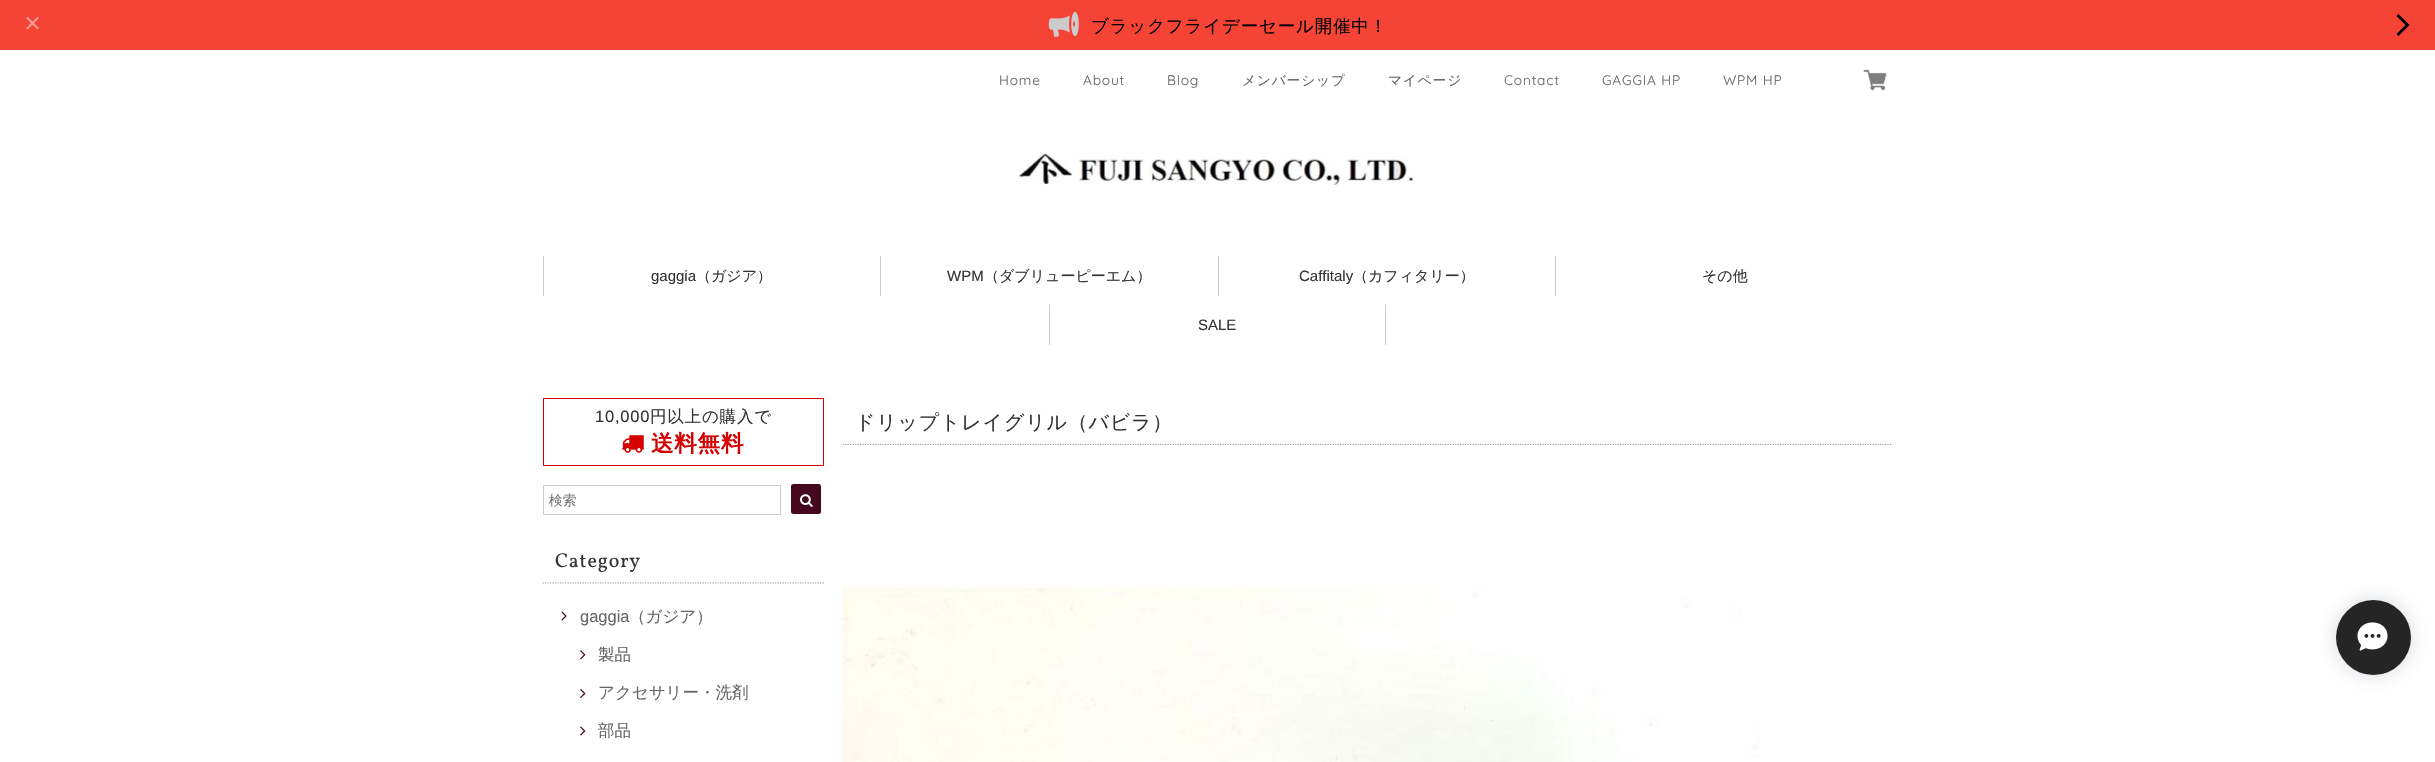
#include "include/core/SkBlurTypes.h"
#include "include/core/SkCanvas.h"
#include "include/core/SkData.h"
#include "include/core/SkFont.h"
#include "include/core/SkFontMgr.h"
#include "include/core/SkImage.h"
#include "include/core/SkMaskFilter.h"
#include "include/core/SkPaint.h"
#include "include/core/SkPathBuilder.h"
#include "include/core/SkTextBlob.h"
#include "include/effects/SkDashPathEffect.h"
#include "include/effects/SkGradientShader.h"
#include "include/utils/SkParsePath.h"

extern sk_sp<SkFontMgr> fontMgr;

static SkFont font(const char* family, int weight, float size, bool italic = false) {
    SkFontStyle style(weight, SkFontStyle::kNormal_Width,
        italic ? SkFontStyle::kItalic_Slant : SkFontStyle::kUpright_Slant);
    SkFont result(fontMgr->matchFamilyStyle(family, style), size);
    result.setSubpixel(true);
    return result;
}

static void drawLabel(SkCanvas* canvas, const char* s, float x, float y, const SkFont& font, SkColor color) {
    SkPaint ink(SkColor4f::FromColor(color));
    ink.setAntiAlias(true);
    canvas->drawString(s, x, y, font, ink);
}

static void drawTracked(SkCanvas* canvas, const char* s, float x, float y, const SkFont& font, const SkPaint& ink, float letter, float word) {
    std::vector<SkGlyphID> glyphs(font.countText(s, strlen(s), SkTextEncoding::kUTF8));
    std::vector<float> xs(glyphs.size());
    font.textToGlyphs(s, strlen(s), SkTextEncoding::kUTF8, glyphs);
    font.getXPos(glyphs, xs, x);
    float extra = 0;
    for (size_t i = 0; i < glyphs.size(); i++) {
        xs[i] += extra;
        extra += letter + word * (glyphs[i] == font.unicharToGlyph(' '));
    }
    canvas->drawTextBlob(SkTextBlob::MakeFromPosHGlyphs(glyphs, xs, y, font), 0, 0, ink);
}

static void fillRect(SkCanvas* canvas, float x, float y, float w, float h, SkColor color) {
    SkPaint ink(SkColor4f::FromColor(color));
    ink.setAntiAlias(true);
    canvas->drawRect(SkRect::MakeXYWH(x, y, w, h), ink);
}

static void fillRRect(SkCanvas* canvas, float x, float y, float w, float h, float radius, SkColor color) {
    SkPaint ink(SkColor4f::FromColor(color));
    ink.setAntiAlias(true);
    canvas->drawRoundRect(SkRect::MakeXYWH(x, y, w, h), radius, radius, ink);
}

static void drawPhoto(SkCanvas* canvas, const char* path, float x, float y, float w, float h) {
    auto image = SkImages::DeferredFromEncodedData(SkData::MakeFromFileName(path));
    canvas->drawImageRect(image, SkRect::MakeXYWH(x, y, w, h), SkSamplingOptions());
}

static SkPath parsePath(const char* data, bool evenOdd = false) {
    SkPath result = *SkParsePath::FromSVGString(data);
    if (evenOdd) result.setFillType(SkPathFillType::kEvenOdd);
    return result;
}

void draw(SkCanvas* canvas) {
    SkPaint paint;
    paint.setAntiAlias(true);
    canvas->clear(0xFFFFFFFF);
    fillRect(canvas, 0, 0, 2435, 50, 0xFFF54336);
    drawPhoto(canvas, "assets/img1.png", 26, 16, 13, 14);
    drawPhoto(canvas, "assets/img2.png", 1048, 11, 31, 26);
    SkFont font1 = font("WenQuanYi Zen Hei", 500, 17.5f);
    paint.setColor(0xFF000000);
    drawTracked(canvas, "ブラックフライデーセール開催中！", 1091, 32, font1, paint, 0.8f, 0);
    canvas->drawPath(parsePath("M2405.5 25L2396.5 16L2398.5 14L2409.5 25L2398.5 36L2396.5 34Z"), paint);
    SkFont font2 = font("Quicksand", 300, 13.75f);
    paint.setColor(0xFF666666);
    drawTracked(canvas, "Home", 999, 85, font2, paint, 0.8f, 0);
    drawTracked(canvas, "About", 1083, 85, font2, paint, 0.8f, 0);
    drawTracked(canvas, "Blog", 1167, 85, font2, paint, 0.8f, 0);
    SkFont font3 = font("WenQuanYi Zen Hei", 500, 13.75f);
    drawTracked(canvas, "メンバーシップ", 1242, 85, font3, paint, 0.8f, 0);
    drawTracked(canvas, "マイページ", 1388, 85, font3, paint, 0.8f, 0);
    drawTracked(canvas, "Contact", 1504, 85, font2, paint, 0.8f, 0);
    drawTracked(canvas, "GAGGIA HP", 1602, 85, font2, paint, 0.8f, 0);
    drawTracked(canvas, "WPM HP", 1723, 85, font2, paint, 0.8f, 0);
    drawPhoto(canvas, "assets/img3.png", 1863, 69, 24, 22);
    drawPhoto(canvas, "assets/img4.png", 1019, 153, 395, 32);
    fillRect(canvas, 543, 256, 1, 40, 0xFFCCCCCC);
    SkFont font4 = font("Liberation Sans", 400, 15);
    drawLabel(canvas, "gaggia", 651, 281, font4, 0xFF333333);
    SkFont font5 = font("WenQuanYi Zen Hei", 500, 15);
    drawLabel(canvas, "（ガジア）", 696, 281, font5, 0xFF333333);
    fillRect(canvas, 880, 256, 1, 40, 0xFFCCCCCC);
    drawLabel(canvas, "WPM", 947, 281, font4, 0xFF333333);
    drawLabel(canvas, "（ダブリューピーエム）", 984, 281, font5, 0xFF333333);
    fillRect(canvas, 1218, 256, 1, 40, 0xFFCCCCCC);
    drawLabel(canvas, "Caffitaly", 1299, 281, font4, 0xFF333333);
    drawLabel(canvas, "（カフィタリー）", 1353, 281, font5, 0xFF333333);
    fillRect(canvas, 1555, 256, 1, 40, 0xFFCCCCCC);
    drawLabel(canvas, "その他", 1702, 281, font5, 0xFF333333);
    fillRect(canvas, 1385, 305, 1, 40, 0xFFCCCCCC);
    fillRect(canvas, 1049, 305, 1, 40, 0xFFCCCCCC);
    drawLabel(canvas, "SALE", 1198, 330, font4, 0xFF333333);
    paint.setStroke(true);
    paint.setStrokeWidth(1);
    paint.setColor(0xFFD50000);
    canvas->drawRect(SkRect::MakeXYWH(543.5f, 398.5f, 280, 67), paint);
    SkFont font6 = font("Liberation Sans", 400, 16.5f);
    paint.setStroke(false);
    paint.setColor(0xFF333333);
    drawTracked(canvas, "10,000", 595, 422, font6, paint, 0.8f, 0);
    SkFont font7 = font("WenQuanYi Zen Hei", 500, 16.5f);
    drawTracked(canvas, "円以上の購入で", 650, 422, font7, paint, 0.8f, 0);
    drawPhoto(canvas, "assets/img5.png", 622, 435, 22, 18);
    SkFont font8 = font("WenQuanYi Zen Hei", 700, 22.5f);
    paint.setColor(0xFFD50000);
    drawTracked(canvas, "送料無料", 651, 451, font8, paint, 0.8f, 0);
    paint.setStroke(true);
    paint.setColor(0xFFCCCCCC);
    canvas->drawRect(SkRect::MakeXYWH(543.5f, 485.5f, 237, 29), paint);
    drawLabel(canvas, "検索", 549, 505, font3, 0xFF757575);
    fillRRect(canvas, 791, 484, 30, 30, 2.5f, 0xFF44091F);
    drawPhoto(canvas, "assets/img6.png", 800, 494, 13, 13);
    paint.setStrokeWidth(1.2f);
    paint.setColor(0xFF999999);
    paint.setPathEffect(SkDashPathEffect::Make({{1.25f, 1.25f}}, 0));
    canvas->drawPath(parsePath("M542.5 583H824"), paint);
    paint.setPathEffect(nullptr);
    SkFont font9 = font("Vollkorn", 400, 20);
    paint.setStroke(false);
    paint.setColor(0xFF333333);
    drawTracked(canvas, "Category", 555, 567, font9, paint, 0.8f, 0);
    drawPhoto(canvas, "assets/img7.png", 561, 611, 6, 10);
    drawLabel(canvas, "gaggia", 580, 622, font6, 0xFF666666);
    drawLabel(canvas, "（ガジア）", 629, 622, font7, 0xFF666666);
    drawPhoto(canvas, "assets/img8.png", 580, 650, 6, 10);
    drawLabel(canvas, "製品", 598, 660, font7, 0xFF666666);
    drawPhoto(canvas, "assets/img9.png", 580, 689, 6, 9);
    drawLabel(canvas, "アクセサリー・洗剤", 598, 698, font7, 0xFF666666);
    drawPhoto(canvas, "assets/img10.png", 580, 726, 6, 10);
    drawLabel(canvas, "部品", 598, 736, font7, 0xFF666666);
    paint.setStroke(true);
    paint.setColor(0xFF999999);
    paint.setPathEffect(SkDashPathEffect::Make({{1.25f, 1.25f}}, 0));
    canvas->drawPath(parsePath("M842.5 444.5H1892.5"), paint);
    paint.setPathEffect(nullptr);
    SkFont font10 = font("WenQuanYi Zen Hei", 500, 20);
    paint.setStroke(false);
    paint.setColor(0xFF333333);
    drawTracked(canvas, "ドリップトレイグリル（バビラ）", 855, 429, font10, paint, 0.8f, 0);
    drawPhoto(canvas, "assets/img11.png", 842, 585, 918, 177);
    paint.setColor(0x33334258);
    paint.setMaskFilter(SkMaskFilter::MakeBlur(kNormal_SkBlurStyle, 9.5f));
    canvas->drawRoundRect(SkRect::MakeXYWH(2336, 600, 75, 75), 37.5f, 37.5f, paint);
    paint.setMaskFilter(nullptr);
    paint.setColor(0xFF252525);
    canvas->drawCircle(2373.5f, 637.5f, 37.5f, paint);
    drawPhoto(canvas, "assets/img12.png", 2357, 622, 31, 29);
}
